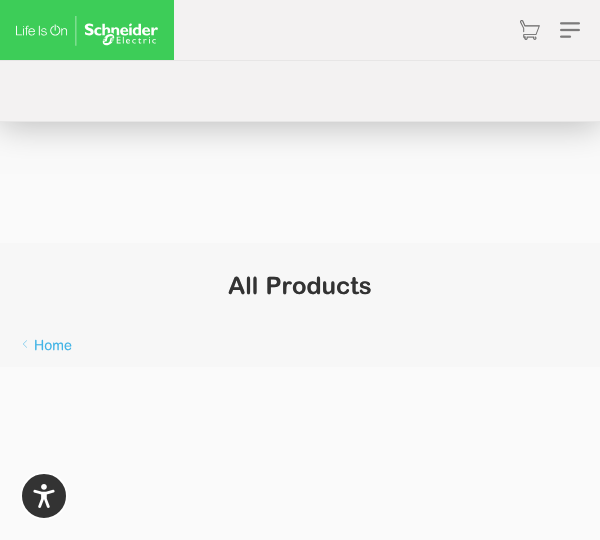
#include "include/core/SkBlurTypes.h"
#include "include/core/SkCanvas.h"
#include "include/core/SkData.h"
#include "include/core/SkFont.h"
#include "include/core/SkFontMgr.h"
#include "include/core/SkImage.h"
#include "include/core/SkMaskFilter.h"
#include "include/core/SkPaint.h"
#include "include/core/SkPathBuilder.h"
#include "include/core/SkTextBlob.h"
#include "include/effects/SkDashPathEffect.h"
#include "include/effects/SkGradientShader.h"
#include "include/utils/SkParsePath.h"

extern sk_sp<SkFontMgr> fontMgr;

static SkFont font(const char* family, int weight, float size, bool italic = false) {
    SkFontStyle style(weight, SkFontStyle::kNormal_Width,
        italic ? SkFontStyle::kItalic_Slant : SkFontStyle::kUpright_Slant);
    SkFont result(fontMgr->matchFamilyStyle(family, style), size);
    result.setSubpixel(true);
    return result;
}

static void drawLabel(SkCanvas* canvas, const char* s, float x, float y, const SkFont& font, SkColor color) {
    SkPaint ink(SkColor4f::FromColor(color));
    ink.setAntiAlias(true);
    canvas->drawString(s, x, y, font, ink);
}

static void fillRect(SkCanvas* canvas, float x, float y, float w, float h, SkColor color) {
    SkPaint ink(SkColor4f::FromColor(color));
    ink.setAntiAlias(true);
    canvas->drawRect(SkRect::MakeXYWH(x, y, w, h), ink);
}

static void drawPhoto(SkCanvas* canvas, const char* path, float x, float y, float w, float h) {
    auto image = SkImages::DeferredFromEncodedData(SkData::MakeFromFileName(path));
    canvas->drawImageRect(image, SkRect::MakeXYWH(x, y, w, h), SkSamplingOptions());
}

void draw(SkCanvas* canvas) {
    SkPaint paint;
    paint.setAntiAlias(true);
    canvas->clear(0xFFFAFAFA);
    paint.setColor(0x40000000);
    paint.setMaskFilter(SkMaskFilter::MakeBlur(kNormal_SkBlurStyle, 16));
    canvas->drawRect(SkRect::MakeXYWH(0, 4, 600, 122), paint);
    paint.setMaskFilter(nullptr);
    fillRect(canvas, 0, 0, 600, 121, 0xFFF3F2F2);
    fillRect(canvas, 0, 121, 600, 1, 0xFFE7E6E6);
    fillRect(canvas, 0, 0, 174, 60, 0xFF3DCD58);
    drawPhoto(canvas, "assets/img1.png", 16, 16, 142, 30);
    drawPhoto(canvas, "assets/img2.png", 520, 20, 20, 20);
    drawPhoto(canvas, "assets/img3.png", 560, 22, 20, 16);
    fillRect(canvas, 0, 60, 600, 1, 0xFFE7E6E6);
    fillRect(canvas, 0, 243, 600, 124, 0xFFF7F7F7);
    SkFont font1 = font("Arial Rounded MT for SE", 700, 24);
    drawLabel(canvas, "All Products", 228, 294, font1, 0xFF333333);
    drawPhoto(canvas, "assets/img4.png", 23, 340, 4, 8);
    SkFont font2 = font("Arial Rounded MT for SE", 400, 14);
    drawLabel(canvas, "Home", 34, 350, font2, 0xFF42B4E6);
    paint.setColor(0xFF333333);
    canvas->drawCircle(44, 496, 23, paint);
    paint.setStroke(true);
    paint.setStrokeWidth(2);
    paint.setColor(0xFFFFFFFF);
    canvas->drawCircle(44, 496, 23, paint);
    drawPhoto(canvas, "assets/img5.png", 33, 484, 22, 24);
}
